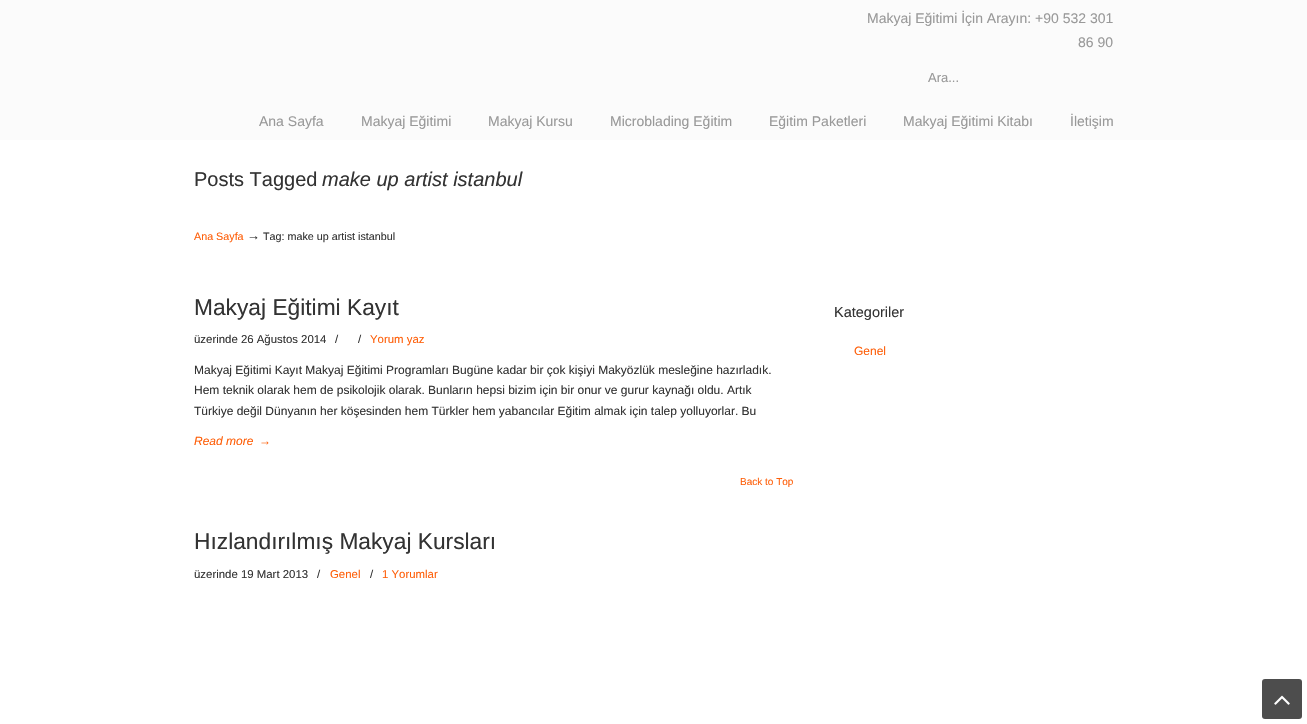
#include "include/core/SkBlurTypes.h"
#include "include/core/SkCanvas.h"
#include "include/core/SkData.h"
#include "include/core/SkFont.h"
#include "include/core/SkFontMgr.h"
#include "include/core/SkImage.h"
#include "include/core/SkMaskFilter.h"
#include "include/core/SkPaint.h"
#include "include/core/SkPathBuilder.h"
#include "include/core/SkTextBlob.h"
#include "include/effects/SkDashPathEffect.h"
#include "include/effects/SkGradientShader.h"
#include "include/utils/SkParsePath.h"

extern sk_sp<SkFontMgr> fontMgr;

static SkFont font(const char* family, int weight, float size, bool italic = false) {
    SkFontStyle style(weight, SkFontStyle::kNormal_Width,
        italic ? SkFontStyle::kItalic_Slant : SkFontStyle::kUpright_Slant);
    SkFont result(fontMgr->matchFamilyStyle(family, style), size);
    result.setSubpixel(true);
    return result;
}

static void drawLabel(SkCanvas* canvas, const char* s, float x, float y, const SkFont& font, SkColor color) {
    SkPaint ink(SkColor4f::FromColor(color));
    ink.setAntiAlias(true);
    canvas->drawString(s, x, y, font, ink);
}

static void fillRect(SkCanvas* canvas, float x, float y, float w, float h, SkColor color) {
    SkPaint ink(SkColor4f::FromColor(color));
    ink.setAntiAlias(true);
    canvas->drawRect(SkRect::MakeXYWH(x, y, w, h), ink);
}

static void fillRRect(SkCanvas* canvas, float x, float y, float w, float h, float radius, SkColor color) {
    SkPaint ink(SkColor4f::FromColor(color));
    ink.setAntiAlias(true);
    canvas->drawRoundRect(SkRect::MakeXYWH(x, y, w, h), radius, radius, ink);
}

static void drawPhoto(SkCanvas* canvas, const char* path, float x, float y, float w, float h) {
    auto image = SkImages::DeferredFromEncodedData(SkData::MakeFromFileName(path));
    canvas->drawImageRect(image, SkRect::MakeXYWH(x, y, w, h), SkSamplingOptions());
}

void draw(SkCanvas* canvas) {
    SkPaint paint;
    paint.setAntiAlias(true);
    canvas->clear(0xFFFBFBFB);
    SkFont font1 = font("Liberation Sans", 400, 14);
    drawLabel(canvas, "Makyaj Eğitimi İçin Arayın: +90 532 301", 867, 23, font1, 0xFF999999);
    drawLabel(canvas, "86 90", 1078, 47, font1, 0xFF999999);
    SkFont font2 = font("Liberation Sans", 400, 13);
    drawLabel(canvas, "Ara...", 928, 82, font2, 0xFF999999);
    drawLabel(canvas, "Ana Sayfa", 259, 126, font1, 0xFF999999);
    drawLabel(canvas, "Makyaj Eğitimi", 361, 126, font1, 0xFF999999);
    drawLabel(canvas, "Makyaj Kursu", 488, 126, font1, 0xFF999999);
    drawLabel(canvas, "Microblading Eğitim", 610, 126, font1, 0xFF999999);
    drawLabel(canvas, "Eğitim Paketleri", 769, 126, font1, 0xFF999999);
    drawLabel(canvas, "Makyaj Eğitimi Kitabı", 903, 126, font1, 0xFF999999);
    drawLabel(canvas, "İletişim", 1070, 126, font1, 0xFF999999);
    fillRect(canvas, 0, 140, 1307, 584, 0xFFFFFFFF);
    SkFont font3 = font("Liberation Sans", 400, 20);
    drawLabel(canvas, "Posts Tagged", 194, 186, font3, 0xFF333333);
    SkFont font4 = font("Liberation Sans", 400, 20, true);
    drawLabel(canvas, "make up artist istanbul", 322, 186, font4, 0xFF333333);
    SkFont font5 = font("Liberation Sans", 400, 10.75f);
    drawLabel(canvas, "Ana Sayfa", 194, 240, font5, 0xFFFE5E08);
    drawLabel(canvas, "→", 247, 240, font2, 0xFF333333);
    drawLabel(canvas, "Tag: make up artist istanbul", 263, 240, font5, 0xFF333333);
    SkFont font6 = font("Liberation Sans", 400, 22.75f);
    drawLabel(canvas, "Makyaj Eğitimi Kayıt", 194, 315, font6, 0xFF333333);
    SkFont font7 = font("Liberation Sans", 400, 11.4f);
    drawLabel(canvas, "üzerinde 26 Ağustos 2014", 194, 343, font7, 0xFF333333);
    drawLabel(canvas, "/", 335, 343, font7, 0xFF333333);
    drawLabel(canvas, "/", 358, 343, font7, 0xFF333333);
    drawLabel(canvas, "Yorum yaz", 370, 343, font7, 0xFFFE5E08);
    SkFont font8 = font("Liberation Sans", 400, 12);
    drawLabel(canvas, "Makyaj Eğitimi Kayıt Makyaj Eğitimi Programları Bugüne kadar bir çok kişiyi Makyözlük mesleğine hazırladık.", 194, 374, font8, 0xFF333333);
    drawLabel(canvas, "Hem teknik olarak hem de psikolojik olarak. Bunların hepsi bizim için bir onur ve gurur kaynağı oldu. Artık", 194, 394, font8, 0xFF333333);
    drawLabel(canvas, "Türkiye değil Dünyanın her köşesinden hem Türkler hem yabancılar Eğitim almak için talep yolluyorlar. Bu", 194, 415, font8, 0xFF333333);
    SkFont font9 = font("Liberation Sans", 400, 12, true);
    drawLabel(canvas, "Read more", 194, 445, font9, 0xFFFE5E08);
    drawLabel(canvas, "→", 259, 445, font8, 0xFFFE5E08);
    SkFont font10 = font("Liberation Sans", 400, 10);
    drawLabel(canvas, "Back to Top", 740, 485, font10, 0xFFFE5E08);
    drawLabel(canvas, "Hızlandırılmış Makyaj Kursları", 194, 549, font6, 0xFF333333);
    drawLabel(canvas, "üzerinde 19 Mart 2013", 194, 578, font7, 0xFF333333);
    drawLabel(canvas, "/", 317, 578, font7, 0xFF333333);
    drawLabel(canvas, "Genel", 330, 578, font7, 0xFFFE5E08);
    drawLabel(canvas, "/", 370, 578, font7, 0xFF333333);
    drawLabel(canvas, "1 Yorumlar", 382, 578, font7, 0xFFFE5E08);
    SkFont font11 = font("Liberation Sans", 400, 14.5f);
    drawLabel(canvas, "Kategoriler", 834, 317, font11, 0xFF333333);
    drawLabel(canvas, "Genel", 854, 355, font8, 0xFFFE5E08);
    fillRRect(canvas, 1262, 679, 40, 40, 3, 0xFF4D4D4D);
    drawPhoto(canvas, "assets/img1.png", 1274, 695, 16, 10);
}
